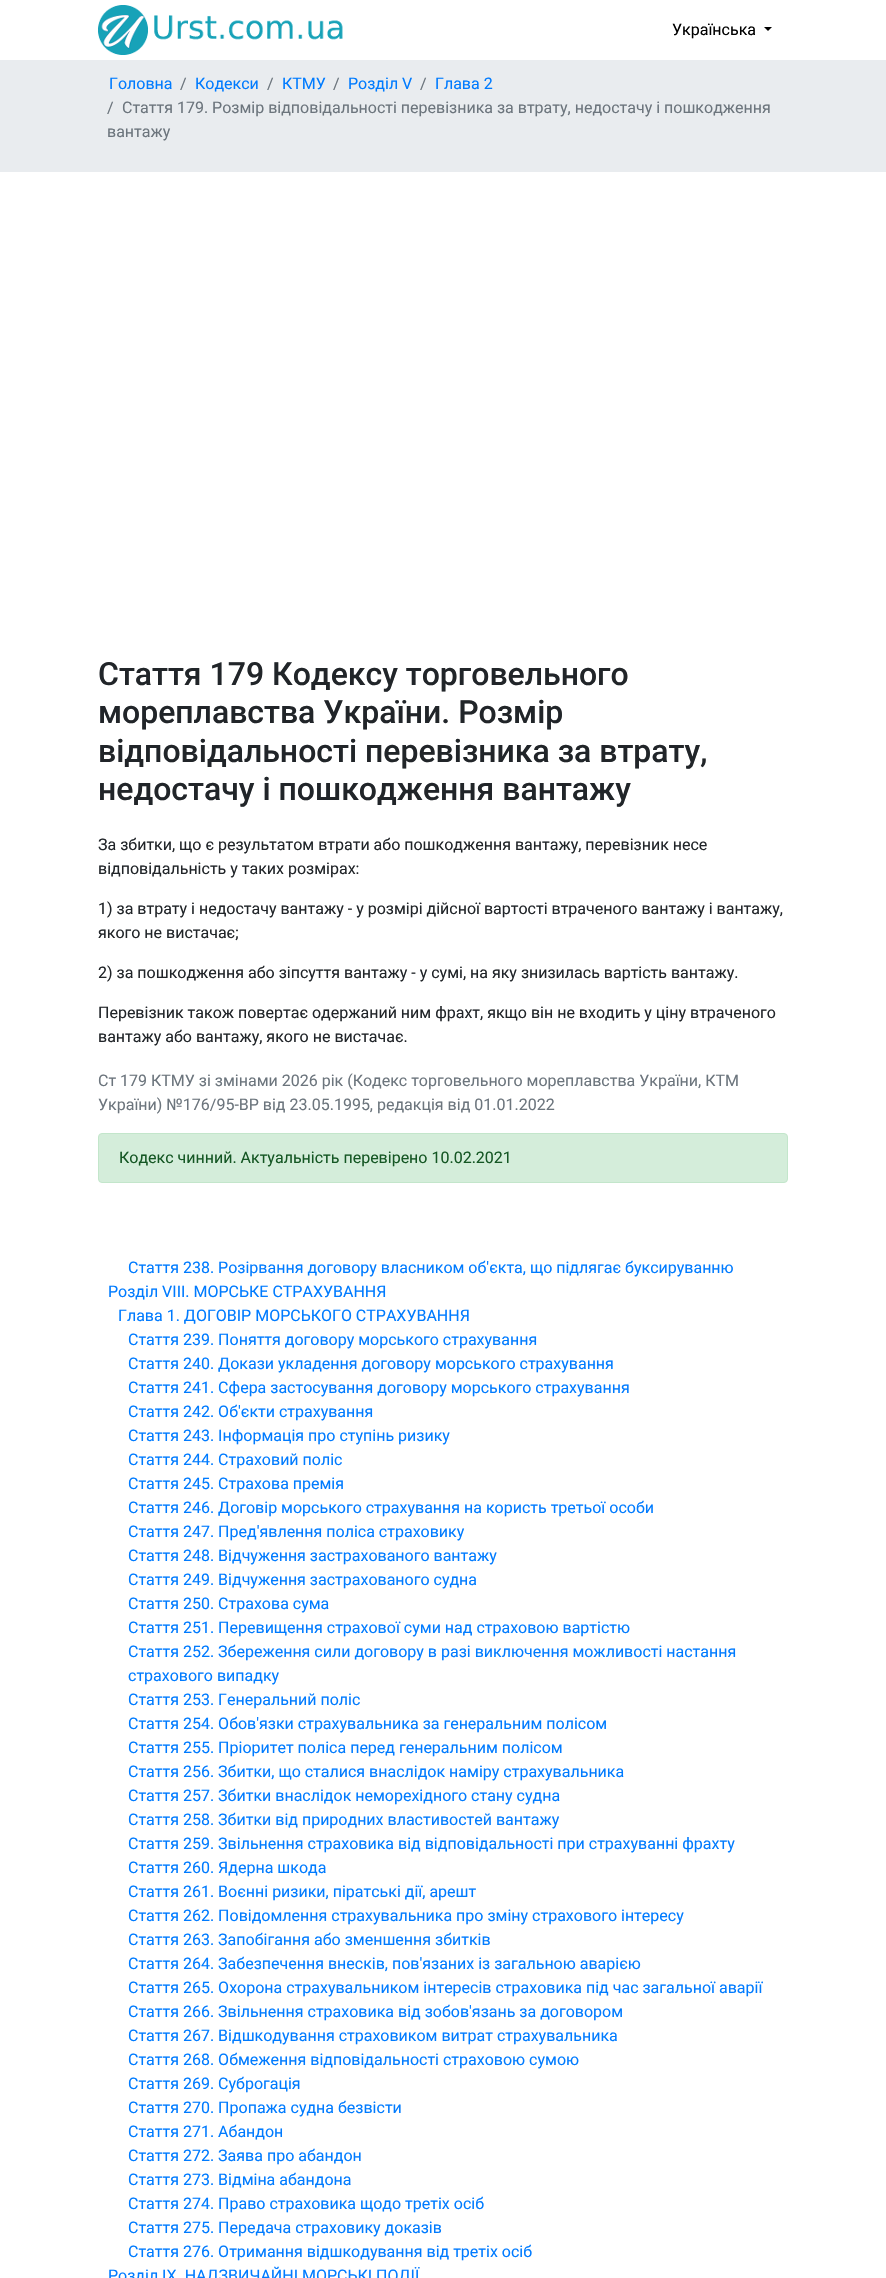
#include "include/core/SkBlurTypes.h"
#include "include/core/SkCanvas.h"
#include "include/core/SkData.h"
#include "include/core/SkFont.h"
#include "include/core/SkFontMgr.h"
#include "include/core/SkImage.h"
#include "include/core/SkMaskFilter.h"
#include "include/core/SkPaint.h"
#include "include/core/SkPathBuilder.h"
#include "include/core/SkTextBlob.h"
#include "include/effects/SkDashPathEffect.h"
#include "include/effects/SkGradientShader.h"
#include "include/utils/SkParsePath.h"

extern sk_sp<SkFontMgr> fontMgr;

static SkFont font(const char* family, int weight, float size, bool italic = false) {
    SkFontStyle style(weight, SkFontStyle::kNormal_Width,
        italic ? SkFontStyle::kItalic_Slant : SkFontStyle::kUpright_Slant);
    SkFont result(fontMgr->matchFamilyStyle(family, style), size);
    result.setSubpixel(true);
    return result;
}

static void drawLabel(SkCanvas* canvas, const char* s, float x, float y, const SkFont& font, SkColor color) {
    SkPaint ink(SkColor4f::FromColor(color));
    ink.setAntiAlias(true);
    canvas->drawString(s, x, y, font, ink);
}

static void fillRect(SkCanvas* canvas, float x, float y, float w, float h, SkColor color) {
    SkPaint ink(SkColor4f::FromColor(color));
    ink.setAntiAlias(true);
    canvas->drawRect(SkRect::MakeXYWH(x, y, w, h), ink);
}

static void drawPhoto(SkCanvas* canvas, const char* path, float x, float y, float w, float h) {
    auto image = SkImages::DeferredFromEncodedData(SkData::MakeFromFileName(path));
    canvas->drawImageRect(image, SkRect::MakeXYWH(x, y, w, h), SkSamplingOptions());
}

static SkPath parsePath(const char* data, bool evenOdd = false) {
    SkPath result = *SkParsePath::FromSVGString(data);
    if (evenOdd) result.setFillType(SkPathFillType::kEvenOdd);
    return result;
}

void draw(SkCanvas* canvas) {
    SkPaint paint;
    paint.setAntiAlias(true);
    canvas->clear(0xFFFFFFFF);
    drawPhoto(canvas, "assets/img1.png", 98, 5, 245, 50);
    SkFont font1 = font("Roboto", 400, 16);
    drawLabel(canvas, "Українська", 672, 35, font1, 0xFF000000);
    paint.setColor(0xFF000000);
    canvas->drawPath(parsePath("M764 27H772L768 31Z"), paint);
    fillRect(canvas, 0, 60, 886, 112, 0xFFE9ECEF);
    drawLabel(canvas, "Головна", 109, 89, font1, 0xFF007BFF);
    drawLabel(canvas, "/", 180, 89, font1, 0xFF6C757D);
    drawLabel(canvas, "Кодекси", 195, 89, font1, 0xFF007BFF);
    drawLabel(canvas, "/", 267, 89, font1, 0xFF6C757D);
    drawLabel(canvas, "КТМУ", 282, 89, font1, 0xFF007BFF);
    drawLabel(canvas, "/", 333, 89, font1, 0xFF6C757D);
    drawLabel(canvas, "Розділ V", 348, 89, font1, 0xFF007BFF);
    drawLabel(canvas, "/", 420, 89, font1, 0xFF6C757D);
    drawLabel(canvas, "Глава 2", 435, 89, font1, 0xFF007BFF);
    drawLabel(canvas, "/", 107, 113, font1, 0xFF6C757D);
    drawLabel(canvas, "Стаття 179. Розмір відповідальності перевізника за втрату, недостачу і пошкодження", 122, 113, font1, 0xFF6C757D);
    drawLabel(canvas, "вантажу", 107, 137, font1, 0xFF6C757D);
    SkFont font2 = font("Roboto", 500, 32);
    drawLabel(canvas, "Стаття 179 Кодексу торговельного", 98, 685, font2, 0xFF212529);
    drawLabel(canvas, "мореплавства України. Розмір", 98, 723, font2, 0xFF212529);
    drawLabel(canvas, "відповідальності перевізника за втрату,", 98, 762, font2, 0xFF212529);
    drawLabel(canvas, "недостачу і пошкодження вантажу", 98, 800, font2, 0xFF212529);
    drawLabel(canvas, "За збитки, що є результатом втрати або пошкодження вантажу, перевізник несе", 98, 850, font1, 0xFF212529);
    drawLabel(canvas, "відповідальність у таких розмірах:", 98, 874, font1, 0xFF212529);
    drawLabel(canvas, "1) за втрату і недостачу вантажу - у розмірі дійсної вартості втраченого вантажу і вантажу,", 98, 914, font1, 0xFF212529);
    drawLabel(canvas, "якого не вистачає;", 98, 938, font1, 0xFF212529);
    drawLabel(canvas, "2) за пошкодження або зіпсуття вантажу - у сумі, на яку знизилась вартість вантажу.", 98, 978, font1, 0xFF212529);
    drawLabel(canvas, "Перевізник також повертає одержаний ним фрахт, якщо він не входить у ціну втраченого", 98, 1018, font1, 0xFF212529);
    drawLabel(canvas, "вантажу або вантажу, якого не вистачає.", 98, 1042, font1, 0xFF212529);
    drawLabel(canvas, "Ст 179 КТМУ зі змінами 2026 рік (Кодекс торговельного мореплавства України, КТМ", 98, 1086, font1, 0xFF6C757D);
    drawLabel(canvas, "України) №176/95-ВР від 23.05.1995, редакція від 01.01.2022", 98, 1110, font1, 0xFF6C757D);
    paint.setColor(0xFFD4EDDA);
    canvas->drawRoundRect(SkRect::MakeXYWH(98.5f, 1133.5f, 689, 49), 3.5f, 3.5f, paint);
    paint.setStroke(true);
    paint.setStrokeWidth(1);
    paint.setColor(0xFFC3E6CB);
    canvas->drawRoundRect(SkRect::MakeXYWH(98.5f, 1133.5f, 689, 49), 3.5f, 3.5f, paint);
    drawLabel(canvas, "Кодекс чинний. Актуальність перевірено 10.02.2021", 119, 1163, font1, 0xFF155724);
    drawLabel(canvas, "Стаття 238. Розірвання договору власником об'єкта, що підлягає буксируванню", 128, 1273, font1, 0xFF007BFF);
    drawLabel(canvas, "Розділ VIII. МОРСЬКЕ СТРАХУВАННЯ", 108, 1297, font1, 0xFF007BFF);
    drawLabel(canvas, "Глава 1. ДОГОВІР МОРСЬКОГО СТРАХУВАННЯ", 118, 1321, font1, 0xFF007BFF);
    drawLabel(canvas, "Стаття 239. Поняття договору морського страхування", 128, 1345, font1, 0xFF007BFF);
    drawLabel(canvas, "Стаття 240. Докази укладення договору морського страхування", 128, 1369, font1, 0xFF007BFF);
    drawLabel(canvas, "Стаття 241. Сфера застосування договору морського страхування", 128, 1393, font1, 0xFF007BFF);
    drawLabel(canvas, "Стаття 242. Об'єкти страхування", 128, 1417, font1, 0xFF007BFF);
    drawLabel(canvas, "Стаття 243. Інформація про ступінь ризику", 128, 1441, font1, 0xFF007BFF);
    drawLabel(canvas, "Стаття 244. Страховий поліс", 128, 1465, font1, 0xFF007BFF);
    drawLabel(canvas, "Стаття 245. Страхова премія", 128, 1489, font1, 0xFF007BFF);
    drawLabel(canvas, "Стаття 246. Договір морського страхування на користь третьої особи", 128, 1513, font1, 0xFF007BFF);
    drawLabel(canvas, "Стаття 247. Пред'явлення поліса страховику", 128, 1537, font1, 0xFF007BFF);
    drawLabel(canvas, "Стаття 248. Відчуження застрахованого вантажу", 128, 1561, font1, 0xFF007BFF);
    drawLabel(canvas, "Стаття 249. Відчуження застрахованого судна", 128, 1585, font1, 0xFF007BFF);
    drawLabel(canvas, "Стаття 250. Страхова сума", 128, 1609, font1, 0xFF007BFF);
    drawLabel(canvas, "Стаття 251. Перевищення страхової суми над страховою вартістю", 128, 1633, font1, 0xFF007BFF);
    drawLabel(canvas, "Стаття 252. Збереження сили договору в разі виключення можливості настання", 128, 1657, font1, 0xFF007BFF);
    drawLabel(canvas, "страхового випадку", 128, 1681, font1, 0xFF007BFF);
    drawLabel(canvas, "Стаття 253. Генеральний поліс", 128, 1705, font1, 0xFF007BFF);
    drawLabel(canvas, "Стаття 254. Обов'язки страхувальника за генеральним полісом", 128, 1729, font1, 0xFF007BFF);
    drawLabel(canvas, "Стаття 255. Пріоритет поліса перед генеральним полісом", 128, 1753, font1, 0xFF007BFF);
    drawLabel(canvas, "Стаття 256. Збитки, що сталися внаслідок наміру страхувальника", 128, 1777, font1, 0xFF007BFF);
    drawLabel(canvas, "Стаття 257. Збитки внаслідок неморехідного стану судна", 128, 1801, font1, 0xFF007BFF);
    drawLabel(canvas, "Стаття 258. Збитки від природних властивостей вантажу", 128, 1825, font1, 0xFF007BFF);
    drawLabel(canvas, "Стаття 259. Звільнення страховика від відповідальності при страхуванні фрахту", 128, 1849, font1, 0xFF007BFF);
    drawLabel(canvas, "Стаття 260. Ядерна шкода", 128, 1873, font1, 0xFF007BFF);
    drawLabel(canvas, "Стаття 261. Воєнні ризики, піратські дії, арешт", 128, 1897, font1, 0xFF007BFF);
    drawLabel(canvas, "Стаття 262. Повідомлення страхувальника про зміну страхового інтересу", 128, 1921, font1, 0xFF007BFF);
    drawLabel(canvas, "Стаття 263. Запобігання або зменшення збитків", 128, 1945, font1, 0xFF007BFF);
    drawLabel(canvas, "Стаття 264. Забезпечення внесків, пов'язаних із загальною аварією", 128, 1969, font1, 0xFF007BFF);
    drawLabel(canvas, "Стаття 265. Охорона страхувальником інтересів страховика під час загальної аварії", 128, 1993, font1, 0xFF007BFF);
    drawLabel(canvas, "Стаття 266. Звільнення страховика від зобов'язань за договором", 128, 2017, font1, 0xFF007BFF);
    drawLabel(canvas, "Стаття 267. Відшкодування страховиком витрат страхувальника", 128, 2041, font1, 0xFF007BFF);
    drawLabel(canvas, "Стаття 268. Обмеження відповідальності страховою сумою", 128, 2065, font1, 0xFF007BFF);
    drawLabel(canvas, "Стаття 269. Суброгація", 128, 2089, font1, 0xFF007BFF);
    drawLabel(canvas, "Стаття 270. Пропажа судна безвісти", 128, 2113, font1, 0xFF007BFF);
    drawLabel(canvas, "Стаття 271. Абандон", 128, 2137, font1, 0xFF007BFF);
    drawLabel(canvas, "Стаття 272. Заява про абандон", 128, 2161, font1, 0xFF007BFF);
    drawLabel(canvas, "Стаття 273. Відміна абандона", 128, 2185, font1, 0xFF007BFF);
    drawLabel(canvas, "Стаття 274. Право страховика щодо третіх осіб", 128, 2209, font1, 0xFF007BFF);
    drawLabel(canvas, "Стаття 275. Передача страховику доказів", 128, 2233, font1, 0xFF007BFF);
    drawLabel(canvas, "Стаття 276. Отримання відшкодування від третіх осіб", 128, 2257, font1, 0xFF007BFF);
    drawLabel(canvas, "Розділ IX. НАДЗВИЧАЙНІ МОРСЬКІ ПОДІЇ", 108, 2281, font1, 0xFF007BFF);
}
